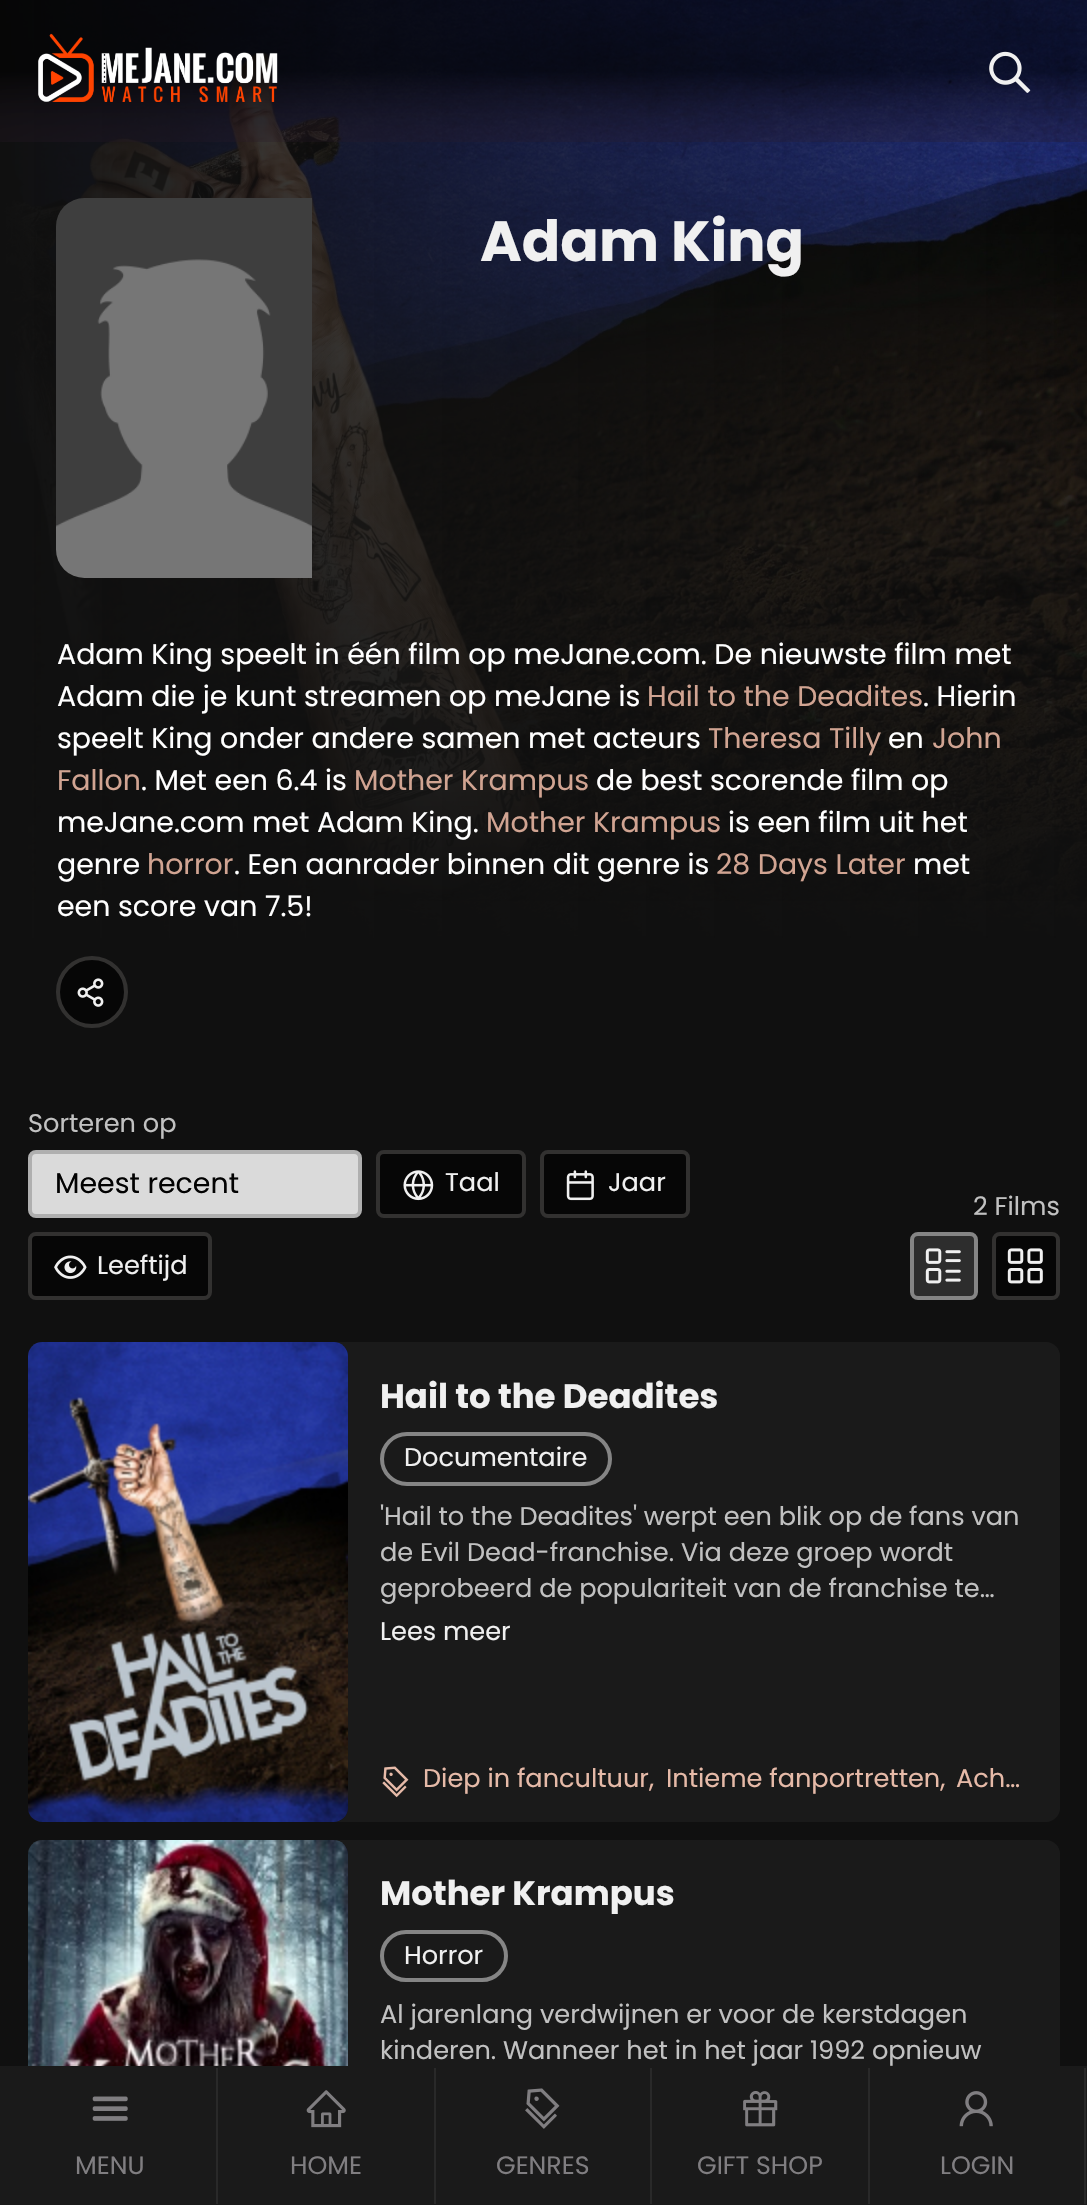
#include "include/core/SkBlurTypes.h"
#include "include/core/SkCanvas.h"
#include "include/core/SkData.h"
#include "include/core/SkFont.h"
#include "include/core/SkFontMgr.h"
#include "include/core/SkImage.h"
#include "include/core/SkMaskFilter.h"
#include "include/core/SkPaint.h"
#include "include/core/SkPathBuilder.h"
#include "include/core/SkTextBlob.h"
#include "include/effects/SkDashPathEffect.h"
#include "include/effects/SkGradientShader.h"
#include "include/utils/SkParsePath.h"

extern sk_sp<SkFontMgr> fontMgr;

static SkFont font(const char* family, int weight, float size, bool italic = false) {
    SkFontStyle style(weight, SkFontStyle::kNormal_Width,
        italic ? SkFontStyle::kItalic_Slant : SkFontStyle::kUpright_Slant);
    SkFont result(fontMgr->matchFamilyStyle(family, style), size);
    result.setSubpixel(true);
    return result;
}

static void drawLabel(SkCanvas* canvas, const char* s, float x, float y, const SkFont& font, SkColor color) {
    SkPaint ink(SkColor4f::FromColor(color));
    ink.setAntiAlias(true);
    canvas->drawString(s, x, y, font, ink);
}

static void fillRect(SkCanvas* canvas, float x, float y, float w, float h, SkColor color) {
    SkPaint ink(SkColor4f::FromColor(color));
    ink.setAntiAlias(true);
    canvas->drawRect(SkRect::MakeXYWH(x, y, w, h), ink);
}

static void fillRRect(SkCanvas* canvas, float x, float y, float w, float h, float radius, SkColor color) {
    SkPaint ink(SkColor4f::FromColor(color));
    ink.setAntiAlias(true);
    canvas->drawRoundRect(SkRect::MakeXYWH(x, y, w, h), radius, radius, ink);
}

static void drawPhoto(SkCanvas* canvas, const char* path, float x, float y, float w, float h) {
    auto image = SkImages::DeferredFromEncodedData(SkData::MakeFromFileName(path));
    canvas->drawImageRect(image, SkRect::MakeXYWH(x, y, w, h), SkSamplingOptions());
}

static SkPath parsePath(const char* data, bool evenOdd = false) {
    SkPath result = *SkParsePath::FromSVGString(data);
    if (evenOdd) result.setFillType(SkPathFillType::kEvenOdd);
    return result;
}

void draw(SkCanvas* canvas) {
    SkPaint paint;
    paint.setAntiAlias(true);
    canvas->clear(0xFF101010);
    drawPhoto(canvas, "assets/img1.png", 0, 0, 1087, 938);
    drawPhoto(canvas, "assets/img2.png", 56, 198, 256, 380);
    SkFont font1 = font("Poppins", 700, 56.75f);
    drawLabel(canvas, "Adam King", 480, 261, font1, 0xFFF0F0F0);
    SkFont font2 = font("Poppins", 400, 28.4f);
    drawLabel(canvas, "Adam King speelt in één film op meJane.com. De nieuwste film met", 57, 664, font2, 0xFFFFFFFF);
    drawLabel(canvas, "Adam die je kunt streamen op meJane is", 57, 706, font2, 0xFFFFFFFF);
    drawLabel(canvas, "Hail to the Deadites", 647, 706, font2, 0xFFD1A492);
    drawLabel(canvas, ". Hierin", 923, 706, font2, 0xFFFFFFFF);
    drawLabel(canvas, "speelt King onder andere samen met acteurs", 57, 748, font2, 0xFFFFFFFF);
    drawLabel(canvas, "Theresa Tilly", 708, 748, font2, 0xFFD1A492);
    drawLabel(canvas, "en", 888, 748, font2, 0xFFFFFFFF);
    drawLabel(canvas, "John", 932, 748, font2, 0xFFD1A492);
    drawLabel(canvas, "Fallon", 57, 790, font2, 0xFFD1A492);
    drawLabel(canvas, ". Met een 6.4 is", 141, 790, font2, 0xFFFFFFFF);
    drawLabel(canvas, "Mother Krampus", 354, 790, font2, 0xFFD1A492);
    drawLabel(canvas, "de best scorende film op", 596, 790, font2, 0xFFFFFFFF);
    drawLabel(canvas, "meJane.com met Adam King.", 57, 832, font2, 0xFFFFFFFF);
    drawLabel(canvas, "Mother Krampus", 486, 832, font2, 0xFFD1A492);
    drawLabel(canvas, "is een film uit het", 728, 832, font2, 0xFFFFFFFF);
    drawLabel(canvas, "genre", 57, 874, font2, 0xFFFFFFFF);
    drawLabel(canvas, "horror", 147, 874, font2, 0xFFD1A492);
    drawLabel(canvas, ". Een aanrader binnen dit genre is", 234, 874, font2, 0xFFFFFFFF);
    drawLabel(canvas, "28 Days Later", 716, 874, font2, 0xFFD1A492);
    drawLabel(canvas, "met", 913, 874, font2, 0xFFFFFFFF);
    drawLabel(canvas, "een score van 7.5!", 57, 916, font2, 0xFFFFFFFF);
    paint.setColor(0xFF060606);
    canvas->drawCircle(92, 992, 34, paint);
    paint.setStroke(true);
    paint.setStrokeWidth(4);
    paint.setColor(0xFF323130);
    canvas->drawCircle(92, 992, 34, paint);
    drawPhoto(canvas, "assets/img3.png", 77, 978, 27, 29);
    SkFont font3 = font("Poppins", 400, 25.6f);
    drawLabel(canvas, "Sorteren op", 28, 1132, font3, 0xFFC1C1C1);
    paint.setStroke(false);
    paint.setColor(0xFFDADADA);
    canvas->drawRoundRect(SkRect::MakeXYWH(30, 1152, 330, 64), 6, 6, paint);
    paint.setStroke(true);
    paint.setColor(0xFFAFAFAF);
    canvas->drawRoundRect(SkRect::MakeXYWH(30, 1152, 330, 64), 6, 6, paint);
    drawLabel(canvas, "Meest recent", 55, 1193, font2, 0xFF020202);
    paint.setStroke(false);
    paint.setColor(0xFF060606);
    canvas->drawRoundRect(SkRect::MakeXYWH(378, 1152, 146, 64), 6, 6, paint);
    paint.setStroke(true);
    paint.setColor(0xFF323130);
    canvas->drawRoundRect(SkRect::MakeXYWH(378, 1152, 146, 64), 6, 6, paint);
    drawPhoto(canvas, "assets/img4.png", 403, 1170, 31, 31);
    drawLabel(canvas, "Taal", 445, 1191, font3, 0xFFF0F0F0);
    paint.setStroke(false);
    paint.setColor(0xFF060606);
    canvas->drawRoundRect(SkRect::MakeXYWH(542, 1152, 146, 64), 6, 6, paint);
    paint.setStroke(true);
    paint.setColor(0xFF323130);
    canvas->drawRoundRect(SkRect::MakeXYWH(542, 1152, 146, 64), 6, 6, paint);
    drawPhoto(canvas, "assets/img5.png", 566, 1170, 28, 31);
    drawLabel(canvas, "Jaar", 608, 1191, font3, 0xFFF0F0F0);
    paint.setStroke(false);
    paint.setColor(0xFF060606);
    canvas->drawRoundRect(SkRect::MakeXYWH(30, 1234, 180, 64), 6, 6, paint);
    paint.setStroke(true);
    paint.setColor(0xFF323130);
    canvas->drawRoundRect(SkRect::MakeXYWH(30, 1234, 180, 64), 6, 6, paint);
    drawPhoto(canvas, "assets/img6.png", 54, 1255, 33, 24);
    drawLabel(canvas, "Leeftijd", 97, 1274, font3, 0xFFF0F0F0);
    drawLabel(canvas, "2 Films", 973, 1215, font3, 0xFFC1C1C1);
    paint.setStroke(false);
    paint.setColor(0xFF2D2D2D);
    canvas->drawRoundRect(SkRect::MakeXYWH(912, 1234, 64, 64), 6, 6, paint);
    paint.setStroke(true);
    paint.setColor(0xFF858585);
    canvas->drawRoundRect(SkRect::MakeXYWH(912, 1234, 64, 64), 6, 6, paint);
    drawPhoto(canvas, "assets/img7.png", 925, 1248, 36, 36);
    paint.setStroke(false);
    paint.setColor(0xFF060606);
    canvas->drawRoundRect(SkRect::MakeXYWH(994, 1234, 64, 64), 6, 6, paint);
    paint.setStroke(true);
    paint.setColor(0xFF323130);
    canvas->drawRoundRect(SkRect::MakeXYWH(994, 1234, 64, 64), 6, 6, paint);
    drawPhoto(canvas, "assets/img8.png", 1007, 1248, 36, 36);
    paint.setStroke(false);
    paint.setColor(0xFF1A1A1A);
    canvas->drawPath(parsePath("M42 1342H348V1822H42C34.5 1822 28 1815.5 28 1808V1356C28 1348.5 34.5 1342 42 1342Z"), paint);
    fillRRect(canvas, 28, 1342, 320, 480, 14, 0xFF101010);
    drawPhoto(canvas, "assets/img9.png", 28, 1342, 320, 480);
    canvas->drawPath(parsePath("M348 1342H1046C1053.5 1342 1060 1348.5 1060 1356V1808C1060 1815.5 1053.5 1822 1046 1822H348Z"), paint);
    SkFont font4 = font("Poppins", 700, 34);
    drawLabel(canvas, "Hail to the Deadites", 380, 1408, font4, 0xFFF0F0F0);
    paint.setStroke(true);
    paint.setColor(0xFF858585);
    canvas->drawRoundRect(SkRect::MakeXYWH(382, 1434, 228, 50), 25, 25, paint);
    drawLabel(canvas, "Documentaire", 404, 1466, font3, 0xFFF0F0F0);
    drawLabel(canvas, "'Hail to the Deadites' werpt een blik op de fans van", 380, 1525, font3, 0xFFC1C1C1);
    drawLabel(canvas, "de Evil Dead-franchise. Via deze groep wordt", 380, 1561, font3, 0xFFC1C1C1);
    drawLabel(canvas, "geprobeerd de populariteit van de franchise te…", 380, 1597, font3, 0xFFC1C1C1);
    drawLabel(canvas, "Lees meer", 380, 1640, font3, 0xFFF0F0F0);
    drawPhoto(canvas, "assets/img10.png", 382, 1766, 27, 32);
    drawLabel(canvas, "Diep in fancultuur,", 423, 1787, font3, 0xFFE6BAA8);
    drawLabel(canvas, "Intieme fanportretten,", 666, 1787, font3, 0xFFE6BAA8);
    drawLabel(canvas, "Ach…", 956, 1787, font3, 0xFFE6BAA8);
    paint.setStroke(false);
    paint.setColor(0xFF1A1A1A);
    canvas->drawPath(parsePath("M42 1840H348V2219H42C34.5 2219 28 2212.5 28 2205V1854C28 1846.5 34.5 1840 42 1840Z"), paint);
    fillRRect(canvas, 28, 1840, 320, 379, 14, 0xFF101010);
    drawPhoto(canvas, "assets/img11.png", 28, 1840, 320, 226);
    canvas->drawPath(parsePath("M348 1840H1046C1053.5 1840 1060 1846.5 1060 1854V2205C1060 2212.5 1053.5 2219 1046 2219H348Z"), paint);
    drawLabel(canvas, "Mother Krampus", 380, 1905, font4, 0xFFF0F0F0);
    paint.setStroke(true);
    paint.setColor(0xFF858585);
    canvas->drawRoundRect(SkRect::MakeXYWH(382, 1932, 124, 48), 24, 24, paint);
    drawLabel(canvas, "Horror", 404, 1964, font3, 0xFFF0F0F0);
    drawLabel(canvas, "Al jarenlang verdwijnen er voor de kerstdagen", 380, 2023, font3, 0xFFC1C1C1);
    drawLabel(canvas, "kinderen. Wanneer het in het jaar 1992 opnieuw", 380, 2059, font3, 0xFFC1C1C1);
    drawPhoto(canvas, "assets/img12.png", 38, 33, 240, 69);
    drawPhoto(canvas, "assets/img13.png", 989, 51, 42, 42);
    fillRect(canvas, 0, 2066, 1087, 139, 0xFF1A1A1A);
    fillRect(canvas, 216, 2068, 2, 136, 0xFF292929);
    drawPhoto(canvas, "assets/img14.png", 92, 2096, 36, 25);
    SkFont font5 = font("Poppins", 400, 25.25f);
    drawLabel(canvas, "MENU", 75, 2174, font5, 0xFF807E81);
    fillRect(canvas, 434, 2068, 2, 136, 0xFF292929);
    drawPhoto(canvas, "assets/img15.png", 306, 2090, 40, 38);
    drawLabel(canvas, "HOME", 290, 2174, font5, 0xFF807E81);
    fillRect(canvas, 650, 2068, 2, 136, 0xFF292929);
    drawPhoto(canvas, "assets/img16.png", 525, 2088, 35, 41);
    drawLabel(canvas, "GENRES", 496, 2174, font5, 0xFF807E81);
    fillRect(canvas, 868, 2068, 2, 136, 0xFF292929);
    drawPhoto(canvas, "assets/img17.png", 743, 2091, 35, 36);
    drawLabel(canvas, "GIFT SHOP", 697, 2174, font5, 0xFF807E81);
    fillRect(canvas, 1084, 2068, 2, 136, 0xFF292929);
    drawPhoto(canvas, "assets/img18.png", 959, 2091, 34, 36);
    drawLabel(canvas, "LOGIN", 940, 2174, font5, 0xFF807E81);
}
